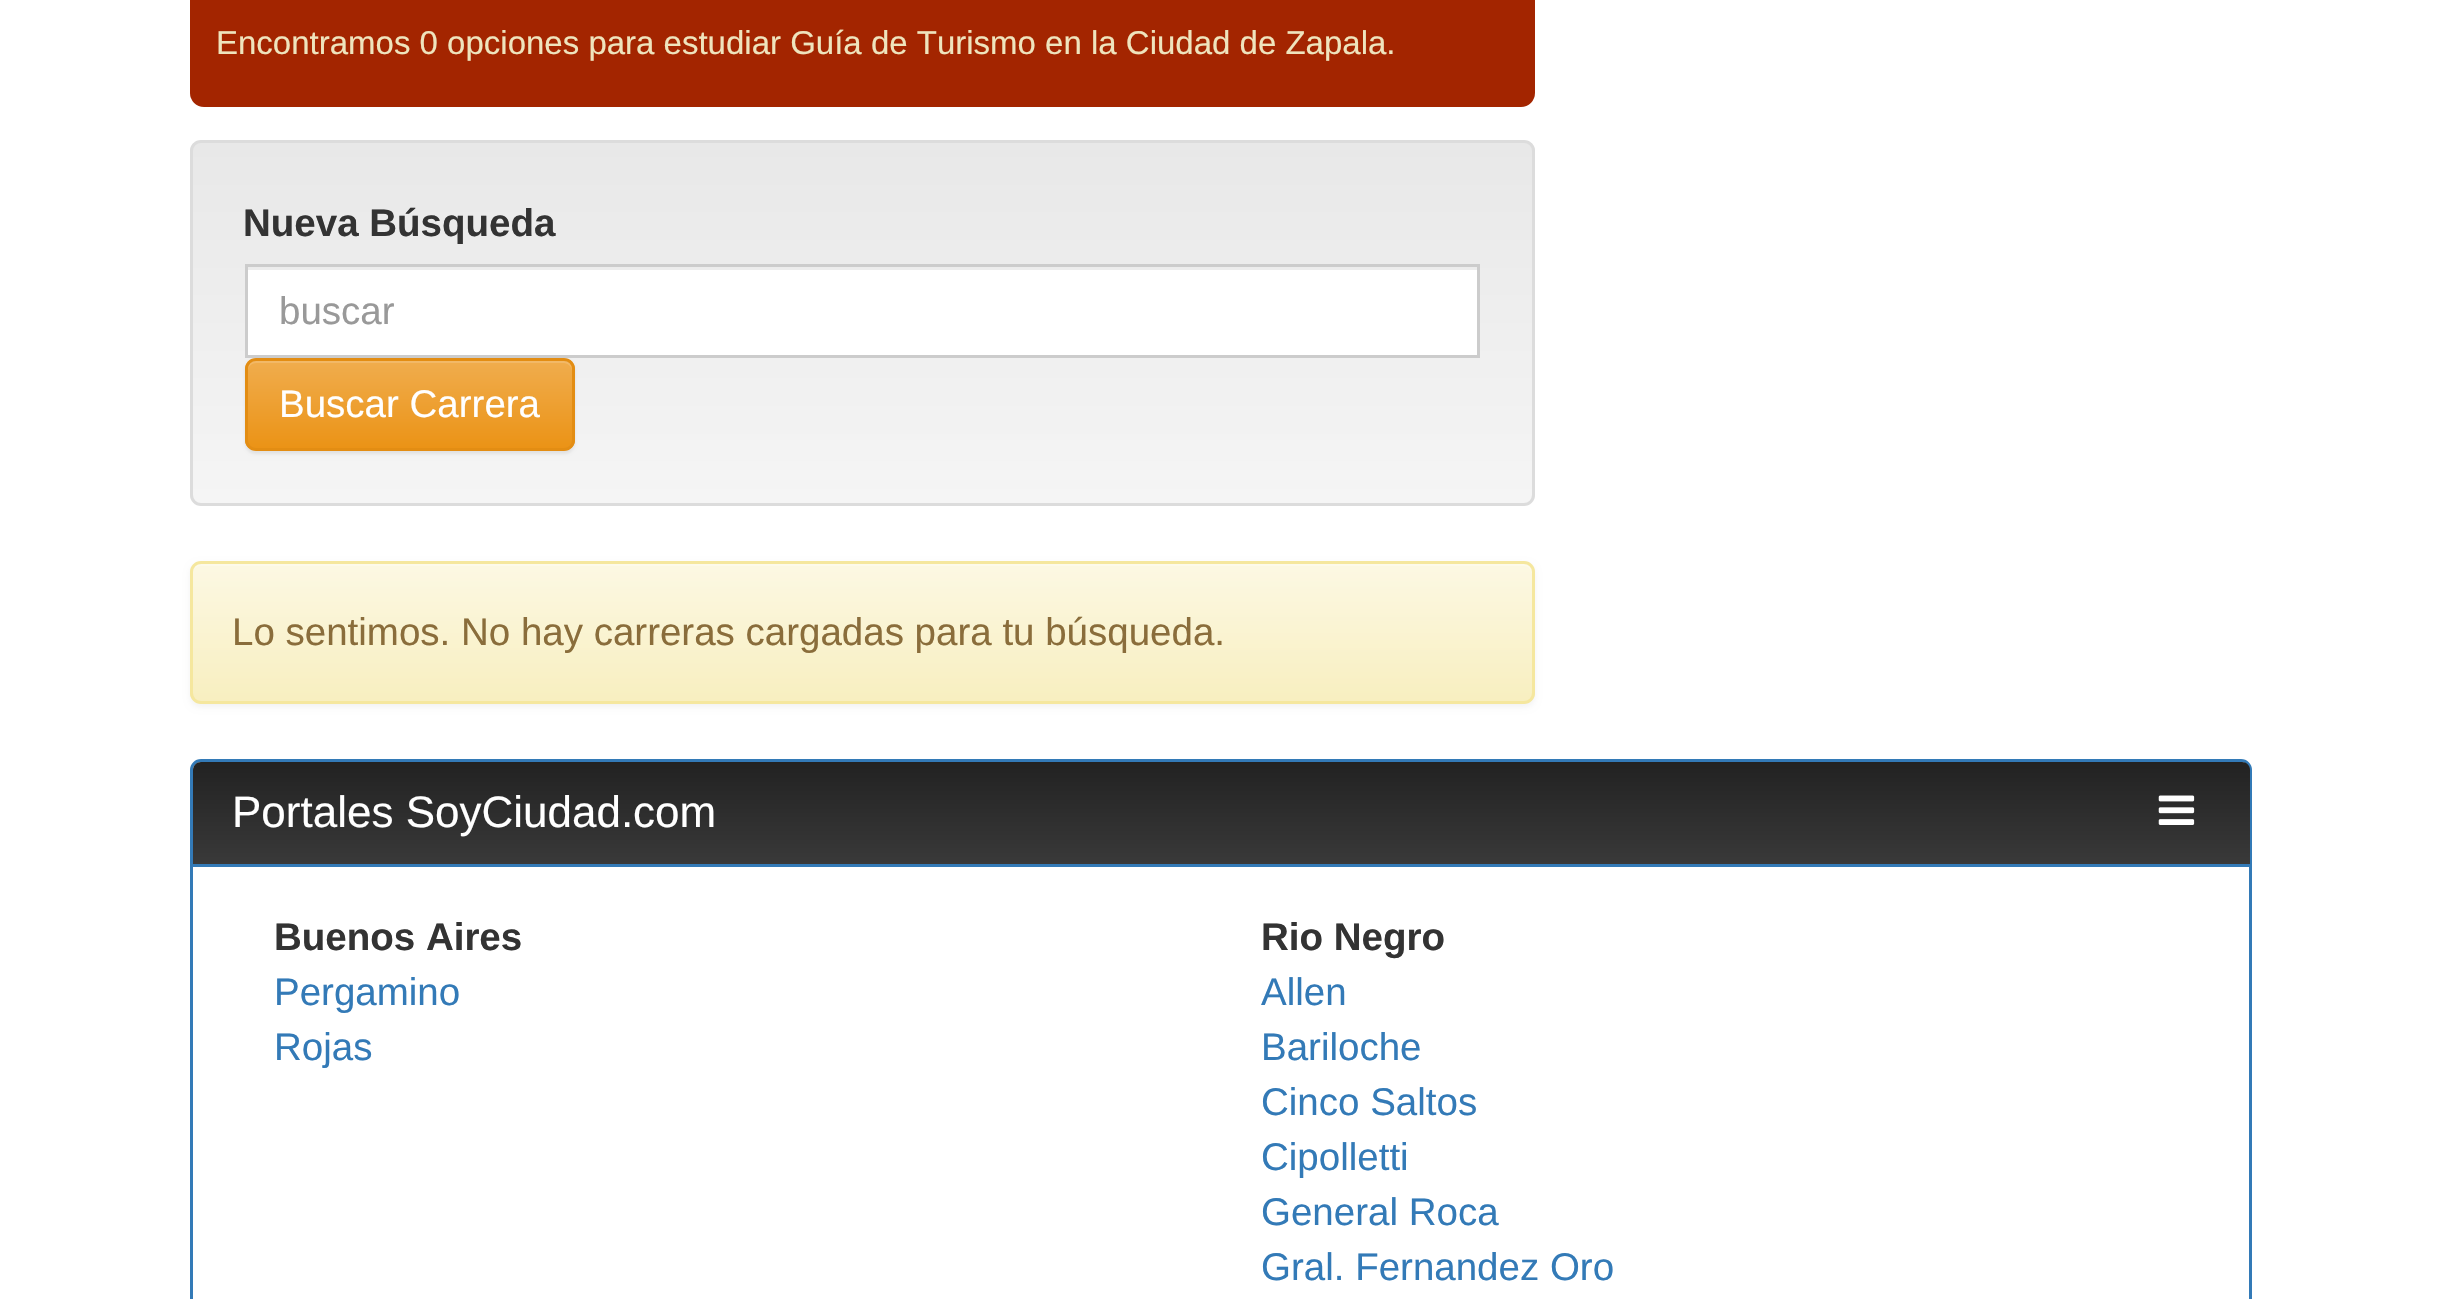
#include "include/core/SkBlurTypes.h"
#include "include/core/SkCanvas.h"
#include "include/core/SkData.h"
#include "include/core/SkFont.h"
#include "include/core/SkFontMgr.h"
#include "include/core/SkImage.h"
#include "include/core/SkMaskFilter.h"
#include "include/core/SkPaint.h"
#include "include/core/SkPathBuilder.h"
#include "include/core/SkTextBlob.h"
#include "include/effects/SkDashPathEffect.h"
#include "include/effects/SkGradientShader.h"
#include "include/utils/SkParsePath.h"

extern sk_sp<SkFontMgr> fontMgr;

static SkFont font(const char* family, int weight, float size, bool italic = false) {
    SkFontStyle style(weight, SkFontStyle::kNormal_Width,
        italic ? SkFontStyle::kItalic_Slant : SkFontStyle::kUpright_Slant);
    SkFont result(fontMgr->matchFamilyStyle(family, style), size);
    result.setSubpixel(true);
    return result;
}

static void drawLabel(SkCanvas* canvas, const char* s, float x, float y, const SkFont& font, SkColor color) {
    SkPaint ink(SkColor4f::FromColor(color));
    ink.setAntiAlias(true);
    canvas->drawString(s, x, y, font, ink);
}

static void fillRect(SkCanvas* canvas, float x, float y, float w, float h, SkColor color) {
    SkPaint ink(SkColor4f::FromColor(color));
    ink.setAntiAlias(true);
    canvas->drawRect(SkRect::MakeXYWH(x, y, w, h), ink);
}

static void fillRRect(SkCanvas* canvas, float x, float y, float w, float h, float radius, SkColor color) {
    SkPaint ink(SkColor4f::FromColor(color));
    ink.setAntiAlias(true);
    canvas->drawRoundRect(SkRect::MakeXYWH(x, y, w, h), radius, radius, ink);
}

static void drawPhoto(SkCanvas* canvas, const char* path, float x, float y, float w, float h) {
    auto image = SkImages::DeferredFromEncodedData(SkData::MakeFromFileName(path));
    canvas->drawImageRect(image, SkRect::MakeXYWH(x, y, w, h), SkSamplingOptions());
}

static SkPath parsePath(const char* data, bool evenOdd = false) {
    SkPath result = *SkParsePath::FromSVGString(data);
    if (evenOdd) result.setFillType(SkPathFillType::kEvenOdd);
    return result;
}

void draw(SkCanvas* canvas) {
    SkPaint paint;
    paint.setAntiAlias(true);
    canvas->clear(0xFFFFFFFF);
    fillRRect(canvas, 190, -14, 1345, 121, 14, 0xFFA32500);
    SkFont font1 = font("Liberation Sans", 400, 33);
    drawLabel(canvas, "Encontramos 0 opciones para estudiar Guía de Turismo en la Ciudad de Zapala.", 216, 54, font1, 0xFFEFE4BD);
    canvas->save();
    canvas->clipPath(parsePath("M201 140H1524C1530 140 1535 145 1535 151V495C1535 501 1530 506 1524 506H201C195 506 190 501 190 495V151C190 145 195 140 201 140Z"), true);
    {
        const SkColor colors[] = {0xFFE8E8E8, 0xFFF5F5F5};
        const float stops[] = {0, 1};
        const SkPoint ends[] = {{862, 143}, {862, 503}};
        paint.setShader(SkGradientShader::MakeLinear(ends, colors, stops, 2, SkTileMode::kClamp));
        paint.setAlpha(255);
    }
    canvas->drawRect(SkRect::MakeXYWH(190, 143, 1345, 360), paint);
    canvas->restore();
    paint.setStroke(true);
    paint.setStrokeWidth(3);
    paint.setShader(nullptr);
    paint.setColor(0xFFDCDCDC);
    canvas->drawRoundRect(SkRect::MakeXYWH(191.5f, 141.5f, 1342, 363), 9.5f, 9.5f, paint);
    SkFont font2 = font("Liberation Sans", 700, 38.5f);
    drawLabel(canvas, "Nueva Búsqueda", 243, 236, font2, 0xFF333333);
    paint.setStroke(false);
    paint.setColor(0x12000000);
    paint.setMaskFilter(SkMaskFilter::MakeBlur(kNormal_SkBlurStyle, 1.5f));
    canvas->drawRoundRect(SkRect::MakeXYWH(245, 360, 330, 94), 11, 11, paint);
    paint.setMaskFilter(nullptr);
    fillRect(canvas, 248, 270, 1229, 85, 0xFFFFFFFF);
    paint.setStroke(true);
    paint.setColor(0xFFCCCCCC);
    canvas->drawRect(SkRect::MakeXYWH(246.5f, 265.5f, 1232, 91), paint);
    SkFont font3 = font("Liberation Sans", 400, 38.5f);
    drawLabel(canvas, "buscar", 279, 324, font3, 0xFF999999);
    canvas->save();
    canvas->clipPath(parsePath("M256 358H564C570 358 575 363 575 369V440C575 446 570 451 564 451H256C250 451 245 446 245 440V369C245 363 250 358 256 358Z"), true);
    paint.setStroke(false);
    {
        const SkColor colors[] = {0xFFF0AD4E, 0xFFEB9316};
        const float stops[] = {0, 1};
        const SkPoint ends[] = {{410, 360}, {410, 448}};
        paint.setShader(SkGradientShader::MakeLinear(ends, colors, stops, 2, SkTileMode::kClamp));
        paint.setAlpha(255);
    }
    canvas->drawRect(SkRect::MakeXYWH(245, 360, 330, 88), paint);
    canvas->restore();
    paint.setShader(nullptr);
    paint.setColor(0x26FFFFFF);
    canvas->drawPath(parsePath("M256 363H564C568 363 572 367 572 371V368C572 364 568 360 564 360H256C252 360 248 364 248 368V371C248 367 251 363 256 363Z"), paint);
    paint.setStroke(true);
    paint.setColor(0xFFE38D13);
    canvas->drawRoundRect(SkRect::MakeXYWH(246.5f, 359.5f, 327, 90), 9.5f, 9.5f, paint);
    drawLabel(canvas, "Buscar Carrera", 279, 417, font3, 0xFFFFFFFF);
    paint.setStroke(false);
    paint.setColor(0x0D000000);
    paint.setMaskFilter(SkMaskFilter::MakeBlur(kNormal_SkBlurStyle, 3));
    canvas->drawRoundRect(SkRect::MakeXYWH(190, 564, 1345, 143), 11, 11, paint);
    paint.setMaskFilter(nullptr);
    canvas->save();
    canvas->clipPath(parsePath("M201 561H1524C1530 561 1535 566 1535 572V693C1535 699 1530 704 1524 704H201C195 704 190 699 190 693V572C190 566 195 561 201 561Z"), true);
    {
        const SkColor colors[] = {0xFFFCF8E3, 0xFFF8EFC0};
        const float stops[] = {0, 1};
        const SkPoint ends[] = {{862, 564}, {862, 701}};
        paint.setShader(SkGradientShader::MakeLinear(ends, colors, stops, 2, SkTileMode::kClamp));
        paint.setAlpha(255);
    }
    canvas->drawRect(SkRect::MakeXYWH(190, 564, 1345, 137), paint);
    canvas->restore();
    paint.setShader(nullptr);
    paint.setColor(0xFFFDFAEA);
    canvas->drawPath(parsePath("M201 566H1524C1528 566 1532 570 1532 575V572C1532 568 1528 564 1524 564H201C197 564 194 567 193 571C195 568 198 566 201 566Z"), paint);
    paint.setStroke(true);
    paint.setColor(0xFFF5E79E);
    canvas->drawRoundRect(SkRect::MakeXYWH(191.5f, 562.5f, 1342, 140), 9.5f, 9.5f, paint);
    drawLabel(canvas, "Lo sentimos. No hay carreras cargadas para tu búsqueda.", 232, 645, font3, 0xFF8A6D3B);
    paint.setColor(0xFF337AB7);
    canvas->drawRoundRect(SkRect::MakeXYWH(191.5f, 760.5f, 2059, 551), 9.5f, 9.5f, paint);
    paint.setStroke(false);
    {
        const SkColor colors[] = {0xFF222222, 0xFF393939};
        const float stops[] = {0, 1};
        const SkPoint ends[] = {{1221, 762}, {1221, 864}};
        paint.setShader(SkGradientShader::MakeLinear(ends, colors, stops, 2, SkTileMode::kClamp));
        paint.setAlpha(255);
    }
    canvas->drawPath(parsePath("M201 762H2242C2246.5 762 2250 765.5 2250 770V864H193V770C193 765.5 196.5 762 201 762Z"), paint);
    SkFont font4 = font("Liberation Sans", 400, 44);
    drawLabel(canvas, "Portales SoyCiudad.com", 232, 827, font4, 0xFFFFFFFF);
    drawPhoto(canvas, "assets/img1.png", 2158, 795, 37, 30);
    fillRect(canvas, 193, 864, 2057, 3, 0xFF337AB7);
    drawLabel(canvas, "Buenos Aires", 274, 950, font2, 0xFF333333);
    drawLabel(canvas, "Pergamino", 274, 1005, font3, 0xFF337AB7);
    drawLabel(canvas, "Rojas", 274, 1060, font3, 0xFF337AB7);
    drawLabel(canvas, "Rio Negro", 1261, 950, font2, 0xFF333333);
    drawLabel(canvas, "Allen", 1261, 1005, font3, 0xFF337AB7);
    drawLabel(canvas, "Bariloche", 1261, 1060, font3, 0xFF337AB7);
    drawLabel(canvas, "Cinco Saltos", 1261, 1115, font3, 0xFF337AB7);
    drawLabel(canvas, "Cipolletti", 1261, 1170, font3, 0xFF337AB7);
    drawLabel(canvas, "General Roca", 1261, 1225, font3, 0xFF337AB7);
    drawLabel(canvas, "Gral. Fernandez Oro", 1261, 1280, font3, 0xFF337AB7);
}
